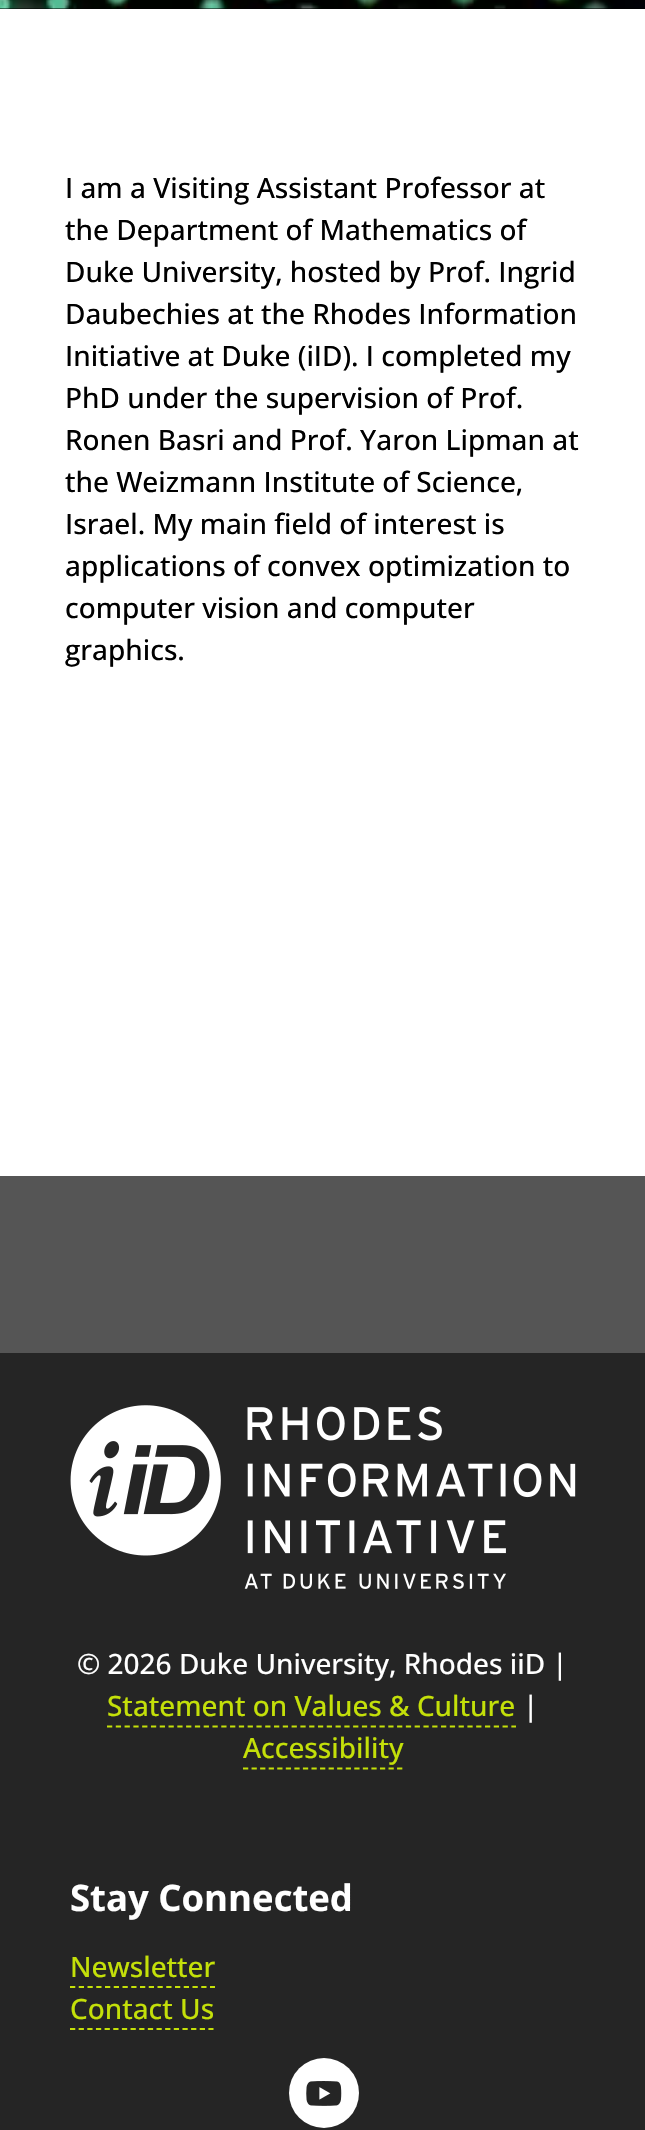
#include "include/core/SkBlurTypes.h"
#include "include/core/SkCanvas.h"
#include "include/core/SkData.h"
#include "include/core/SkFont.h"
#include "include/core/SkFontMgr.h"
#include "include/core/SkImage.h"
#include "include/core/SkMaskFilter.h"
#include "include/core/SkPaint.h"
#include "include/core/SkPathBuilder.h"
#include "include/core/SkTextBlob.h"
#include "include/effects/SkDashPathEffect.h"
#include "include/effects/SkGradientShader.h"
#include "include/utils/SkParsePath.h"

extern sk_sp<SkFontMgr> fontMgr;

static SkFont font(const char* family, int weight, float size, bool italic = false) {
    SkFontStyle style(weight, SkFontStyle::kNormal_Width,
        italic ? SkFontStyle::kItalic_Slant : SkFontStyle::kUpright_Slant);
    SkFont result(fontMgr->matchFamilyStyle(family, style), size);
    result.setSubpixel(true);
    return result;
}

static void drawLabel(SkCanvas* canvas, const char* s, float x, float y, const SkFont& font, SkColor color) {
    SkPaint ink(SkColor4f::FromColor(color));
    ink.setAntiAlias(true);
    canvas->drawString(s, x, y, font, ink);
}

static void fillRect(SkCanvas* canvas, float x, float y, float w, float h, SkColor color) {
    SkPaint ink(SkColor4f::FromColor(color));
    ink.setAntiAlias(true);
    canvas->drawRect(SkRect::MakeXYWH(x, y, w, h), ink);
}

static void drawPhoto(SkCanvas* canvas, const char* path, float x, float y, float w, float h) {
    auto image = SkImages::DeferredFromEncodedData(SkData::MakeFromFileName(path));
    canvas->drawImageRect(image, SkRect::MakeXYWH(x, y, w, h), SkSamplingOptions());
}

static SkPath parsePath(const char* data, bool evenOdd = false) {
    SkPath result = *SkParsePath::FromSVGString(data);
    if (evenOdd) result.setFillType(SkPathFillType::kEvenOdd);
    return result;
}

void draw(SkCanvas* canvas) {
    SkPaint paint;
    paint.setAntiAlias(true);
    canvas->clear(0xFFFFFFFF);
    fillRect(canvas, 0, 8, 645, 1, 0xFF000000);
    drawPhoto(canvas, "assets/img1.png", 0, 0, 645, 9);
    SkFont font1 = font("Open Sans", 500, 28);
    drawLabel(canvas, "I am a Visiting Assistant Professor at", 65, 198, font1, 0xFF000000);
    drawLabel(canvas, "the Department of Mathematics of", 65, 240, font1, 0xFF000000);
    drawLabel(canvas, "Duke University, hosted by Prof. Ingrid", 65, 282, font1, 0xFF000000);
    drawLabel(canvas, "Daubechies at the Rhodes Information", 65, 324, font1, 0xFF000000);
    drawLabel(canvas, "Initiative at Duke (iID). I completed my", 65, 366, font1, 0xFF000000);
    drawLabel(canvas, "PhD under the supervision of Prof.", 65, 408, font1, 0xFF000000);
    drawLabel(canvas, "Ronen Basri and Prof. Yaron Lipman at", 65, 450, font1, 0xFF000000);
    drawLabel(canvas, "the Weizmann Institute of Science,", 65, 492, font1, 0xFF000000);
    drawLabel(canvas, "Israel. My main field of interest is", 65, 534, font1, 0xFF000000);
    drawLabel(canvas, "applications of convex optimization to", 65, 576, font1, 0xFF000000);
    drawLabel(canvas, "computer vision and computer", 65, 618, font1, 0xFF000000);
    drawLabel(canvas, "graphics.", 65, 660, font1, 0xFF000000);
    fillRect(canvas, 0, 1176, 645, 177, 0xFF555555);
    fillRect(canvas, 0, 1353, 645, 777, 0xFF252525);
    drawPhoto(canvas, "assets/img2.png", 70, 1405, 506, 184);
    drawLabel(canvas, "© 2026 Duke University, Rhodes iiD |", 77, 1674, font1, 0xFFFFFFFF);
    drawLabel(canvas, "Statement on Values & Culture", 107, 1716, font1, 0xFFC4E009);
    paint.setStroke(true);
    paint.setStrokeWidth(1.8f);
    paint.setColor(0xFFC4E009);
    paint.setPathEffect(SkDashPathEffect::Make({{5.25f, 3.54f}}, 0));
    canvas->drawPath(parsePath("M107 1726.5H516"), paint);
    paint.setPathEffect(nullptr);
    drawLabel(canvas, "|", 523, 1716, font1, 0xFFFFFFFF);
    drawLabel(canvas, "Accessibility", 243, 1758, font1, 0xFFC4E009);
    paint.setPathEffect(SkDashPathEffect::Make({{5.25f, 3.31f}}, 0));
    canvas->drawPath(parsePath("M243 1768.5H402.5"), paint);
    paint.setPathEffect(nullptr);
    SkFont font2 = font("Open Sans", 700, 36.5f);
    drawLabel(canvas, "Stay Connected", 70, 1911, font2, 0xFFFFFFFF);
    drawLabel(canvas, "Newsletter", 70, 1977, font1, 0xFFC4E009);
    paint.setPathEffect(SkDashPathEffect::Make({{5.25f, 3.5f}}, 0));
    canvas->drawPath(parsePath("M70 1987H215"), paint);
    paint.setPathEffect(nullptr);
    drawLabel(canvas, "Contact Us", 70, 2019, font1, 0xFFC4E009);
    paint.setPathEffect(SkDashPathEffect::Make({{5.25f, 3.4f}}, 0));
    canvas->drawPath(parsePath("M70 2029H213.5"), paint);
    paint.setPathEffect(nullptr);
    paint.setStroke(false);
    paint.setColor(0xFFFFFFFF);
    canvas->drawCircle(324, 2093, 35, paint);
    drawPhoto(canvas, "assets/img3.png", 306, 2081, 36, 25);
}
